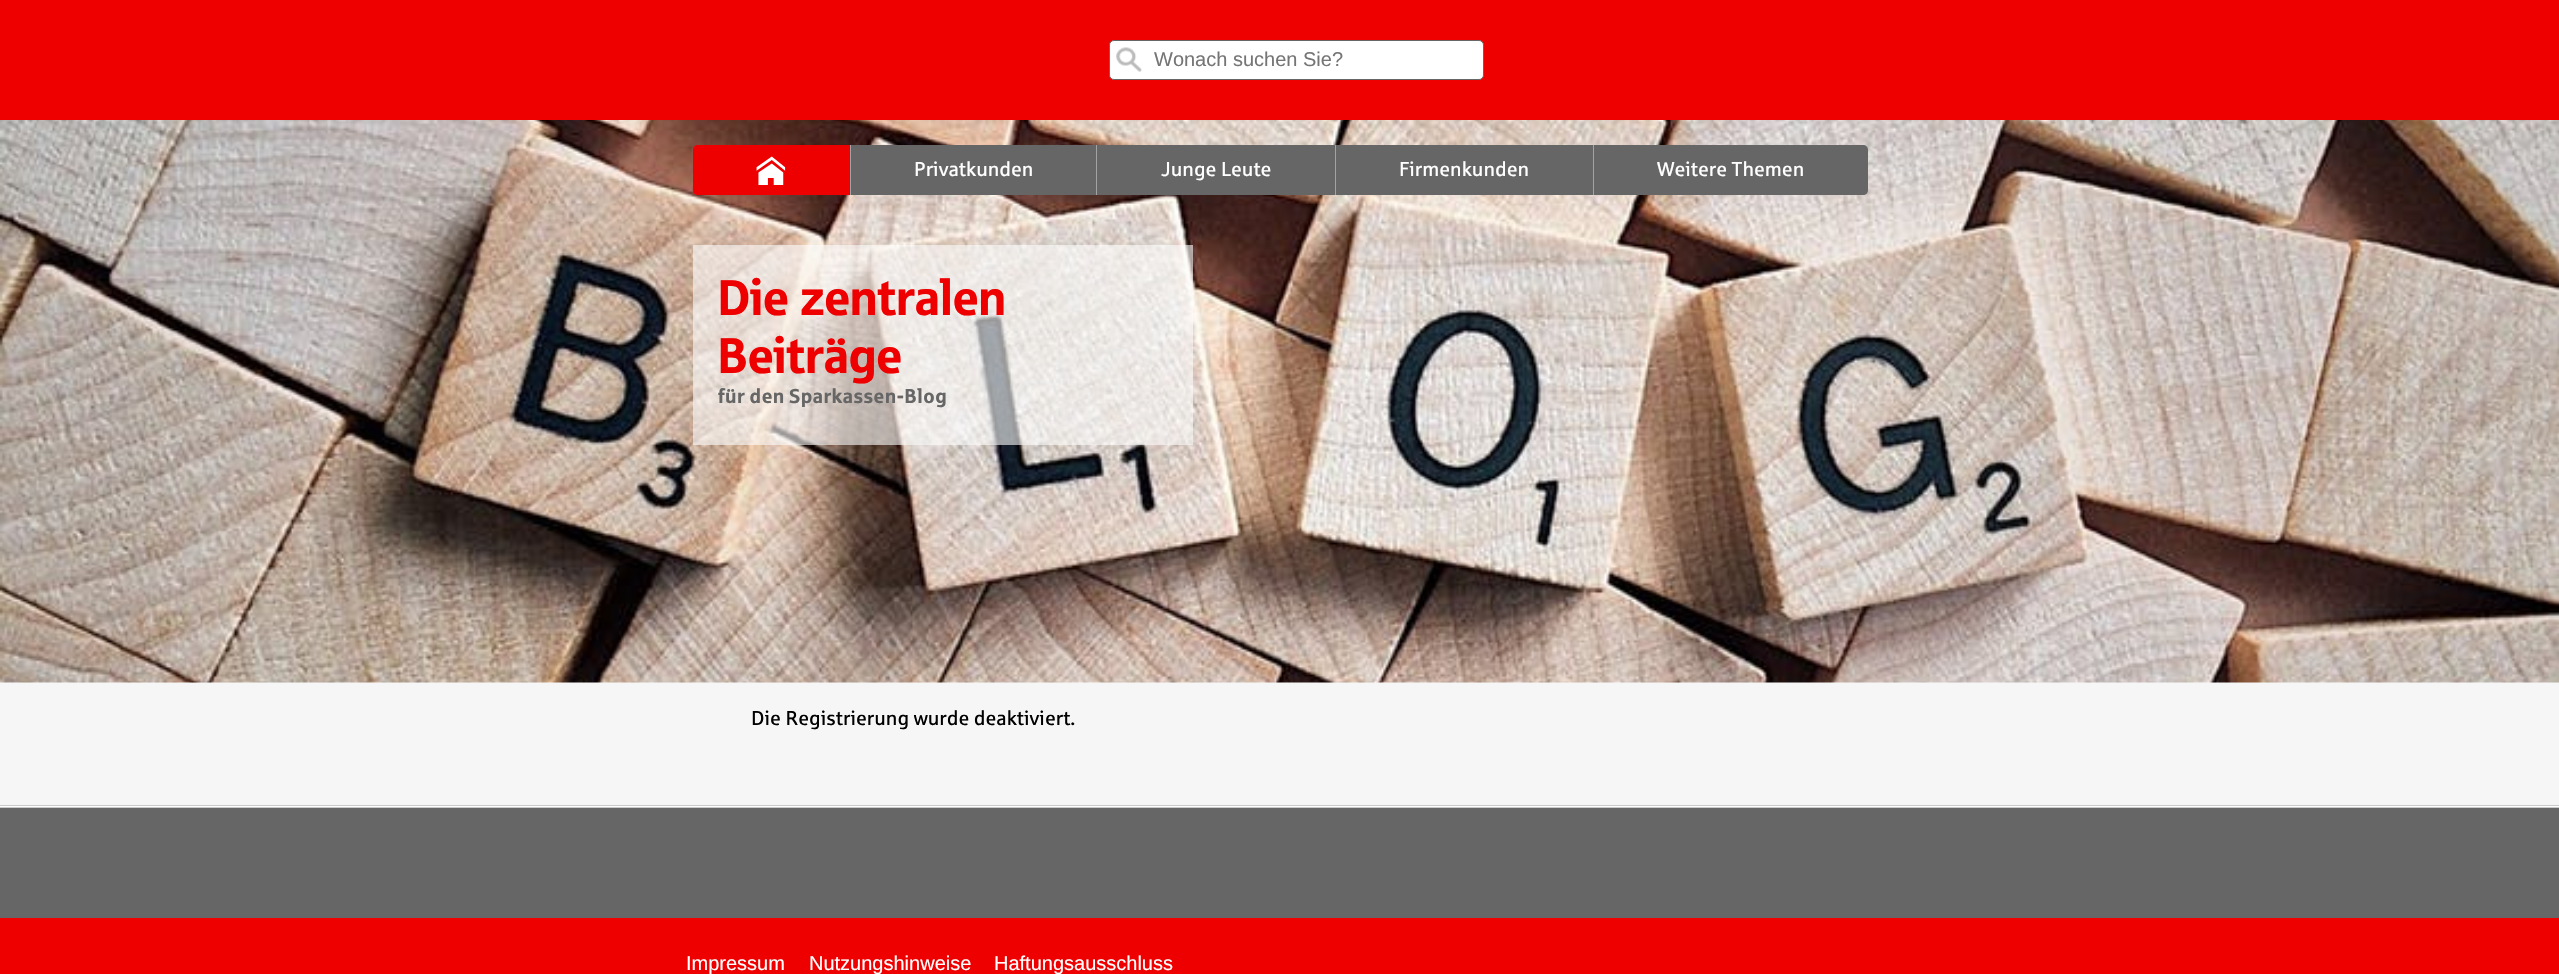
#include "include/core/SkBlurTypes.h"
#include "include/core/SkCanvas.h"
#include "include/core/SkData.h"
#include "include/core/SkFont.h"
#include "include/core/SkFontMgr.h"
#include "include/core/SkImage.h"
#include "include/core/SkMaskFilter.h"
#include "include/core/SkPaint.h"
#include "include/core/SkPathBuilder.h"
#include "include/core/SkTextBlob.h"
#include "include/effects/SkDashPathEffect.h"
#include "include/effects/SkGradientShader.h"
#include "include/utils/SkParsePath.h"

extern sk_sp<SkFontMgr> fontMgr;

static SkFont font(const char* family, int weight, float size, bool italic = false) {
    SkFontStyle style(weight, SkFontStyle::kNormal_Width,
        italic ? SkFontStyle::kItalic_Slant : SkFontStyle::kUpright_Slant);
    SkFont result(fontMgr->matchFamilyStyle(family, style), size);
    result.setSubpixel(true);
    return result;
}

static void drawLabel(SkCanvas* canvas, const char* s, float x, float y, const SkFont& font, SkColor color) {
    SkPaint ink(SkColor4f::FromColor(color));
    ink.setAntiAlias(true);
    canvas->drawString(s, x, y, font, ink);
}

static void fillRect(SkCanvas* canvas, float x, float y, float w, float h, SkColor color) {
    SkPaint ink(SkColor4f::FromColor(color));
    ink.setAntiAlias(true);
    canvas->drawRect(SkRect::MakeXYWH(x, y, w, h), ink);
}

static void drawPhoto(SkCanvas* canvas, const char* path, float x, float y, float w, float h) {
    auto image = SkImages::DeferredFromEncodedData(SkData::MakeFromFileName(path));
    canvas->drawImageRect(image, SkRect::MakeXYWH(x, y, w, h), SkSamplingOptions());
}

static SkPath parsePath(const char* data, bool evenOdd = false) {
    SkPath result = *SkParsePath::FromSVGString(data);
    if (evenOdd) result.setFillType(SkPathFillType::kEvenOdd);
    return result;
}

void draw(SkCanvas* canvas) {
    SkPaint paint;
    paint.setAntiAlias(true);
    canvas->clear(0xFFF6F6F6);
    fillRect(canvas, 0, 0, 2559, 120, 0xFFEE0000);
    paint.setColor(0xFFFFFFFF);
    canvas->drawRoundRect(SkRect::MakeXYWH(1109.5f, 40.5f, 374, 39), 4.5f, 4.5f, paint);
    paint.setStroke(true);
    paint.setStrokeWidth(1);
    paint.setColor(0xFF666666);
    canvas->drawRoundRect(SkRect::MakeXYWH(1109.5f, 40.5f, 374, 39), 4.5f, 4.5f, paint);
    drawPhoto(canvas, "assets/img1.png", 1116, 47, 26, 25);
    SkFont font1 = font("Liberation Sans", 400, 20);
    drawLabel(canvas, "Wonach suchen Sie?", 1154, 66, font1, 0xFF757575);
    drawPhoto(canvas, "assets/img2.png", 0, 120, 2559, 563);
    fillRect(canvas, 850, 145, 1, 50, 0xFFA3A3A3);
    paint.setStroke(false);
    paint.setColor(0xFFEE0000);
    canvas->drawPath(parsePath("M698 145H850V195H698C695 195 693 193 693 190V150C693 147 695 145 698 145Z"), paint);
    drawPhoto(canvas, "assets/img3.png", 756, 156, 30, 29);
    fillRect(canvas, 851, 145, 484, 50, 0xFF666666);
    fillRect(canvas, 1096, 145, 1, 50, 0xFFA3A3A3);
    SkFont font2 = font("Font", 400, 20);
    drawLabel(canvas, "Privatkunden", 914, 176, font2, 0xFFFFFFFF);
    fillRect(canvas, 1335, 145, 1, 50, 0xFFA3A3A3);
    drawLabel(canvas, "Junge Leute", 1161, 176, font2, 0xFFFFFFFF);
    fillRect(canvas, 1336, 145, 257, 50, 0xFF666666);
    fillRect(canvas, 1593, 145, 1, 50, 0xFFA3A3A3);
    drawLabel(canvas, "Firmenkunden", 1399, 176, font2, 0xFFFFFFFF);
    paint.setColor(0xFF666666);
    canvas->drawPath(parsePath("M1594 145H1863C1866 145 1868 147 1868 150V190C1868 193 1866 195 1863 195H1594Z"), paint);
    drawLabel(canvas, "Weitere Themen", 1657, 176, font2, 0xFFFFFFFF);
    fillRect(canvas, 693, 245, 500, 200, 0x99FEFEFE);
    SkFont font3 = font("Font", 700, 50);
    drawLabel(canvas, "Die zentralen", 718, 315, font3, 0xFFEE0000);
    drawLabel(canvas, "Beiträge", 718, 373, font3, 0xFFEE0000);
    SkFont font4 = font("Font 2", 700, 20);
    drawLabel(canvas, "für den Sparkassen-Blog", 718, 403, font4, 0xFF666666);
    drawLabel(canvas, "Die Registrierung wurde deaktiviert.", 751, 725, font2, 0xFF000000);
    fillRect(canvas, 0, 805, 2559, 3, 0xFFC9C9C9);
    fillRect(canvas, 0, 806, 2559, 1, 0xFFFEFEFE);
    fillRect(canvas, 0, 808, 2559, 110, 0xFF666666);
    fillRect(canvas, 0, 918, 2559, 56, 0xFFEE0000);
    drawLabel(canvas, "Impressum", 686, 970, font1, 0xFFFFFFFF);
    drawLabel(canvas, "Nutzungshinweise", 809, 970, font1, 0xFFFFFFFF);
    drawLabel(canvas, "Haftungsausschluss", 994, 970, font1, 0xFFFFFFFF);
}
